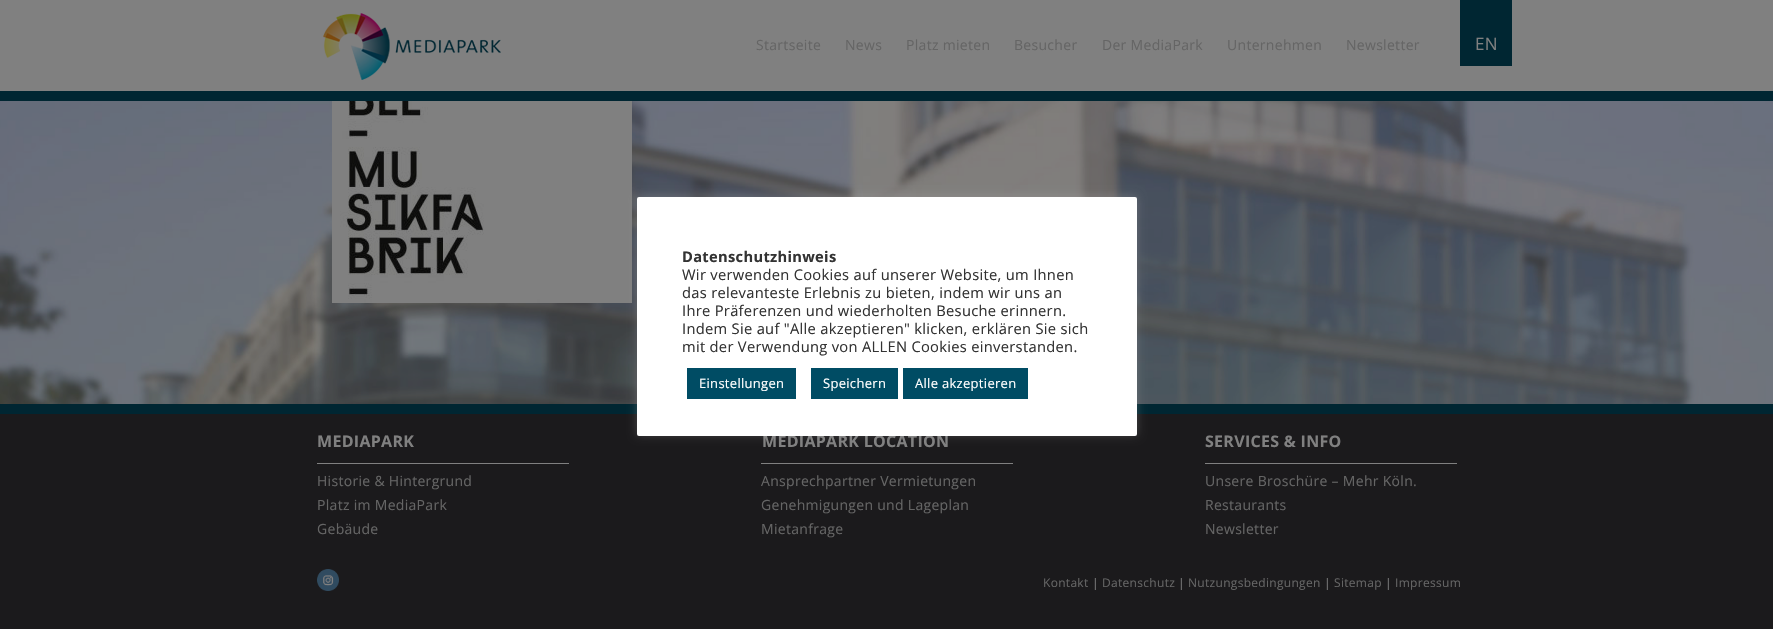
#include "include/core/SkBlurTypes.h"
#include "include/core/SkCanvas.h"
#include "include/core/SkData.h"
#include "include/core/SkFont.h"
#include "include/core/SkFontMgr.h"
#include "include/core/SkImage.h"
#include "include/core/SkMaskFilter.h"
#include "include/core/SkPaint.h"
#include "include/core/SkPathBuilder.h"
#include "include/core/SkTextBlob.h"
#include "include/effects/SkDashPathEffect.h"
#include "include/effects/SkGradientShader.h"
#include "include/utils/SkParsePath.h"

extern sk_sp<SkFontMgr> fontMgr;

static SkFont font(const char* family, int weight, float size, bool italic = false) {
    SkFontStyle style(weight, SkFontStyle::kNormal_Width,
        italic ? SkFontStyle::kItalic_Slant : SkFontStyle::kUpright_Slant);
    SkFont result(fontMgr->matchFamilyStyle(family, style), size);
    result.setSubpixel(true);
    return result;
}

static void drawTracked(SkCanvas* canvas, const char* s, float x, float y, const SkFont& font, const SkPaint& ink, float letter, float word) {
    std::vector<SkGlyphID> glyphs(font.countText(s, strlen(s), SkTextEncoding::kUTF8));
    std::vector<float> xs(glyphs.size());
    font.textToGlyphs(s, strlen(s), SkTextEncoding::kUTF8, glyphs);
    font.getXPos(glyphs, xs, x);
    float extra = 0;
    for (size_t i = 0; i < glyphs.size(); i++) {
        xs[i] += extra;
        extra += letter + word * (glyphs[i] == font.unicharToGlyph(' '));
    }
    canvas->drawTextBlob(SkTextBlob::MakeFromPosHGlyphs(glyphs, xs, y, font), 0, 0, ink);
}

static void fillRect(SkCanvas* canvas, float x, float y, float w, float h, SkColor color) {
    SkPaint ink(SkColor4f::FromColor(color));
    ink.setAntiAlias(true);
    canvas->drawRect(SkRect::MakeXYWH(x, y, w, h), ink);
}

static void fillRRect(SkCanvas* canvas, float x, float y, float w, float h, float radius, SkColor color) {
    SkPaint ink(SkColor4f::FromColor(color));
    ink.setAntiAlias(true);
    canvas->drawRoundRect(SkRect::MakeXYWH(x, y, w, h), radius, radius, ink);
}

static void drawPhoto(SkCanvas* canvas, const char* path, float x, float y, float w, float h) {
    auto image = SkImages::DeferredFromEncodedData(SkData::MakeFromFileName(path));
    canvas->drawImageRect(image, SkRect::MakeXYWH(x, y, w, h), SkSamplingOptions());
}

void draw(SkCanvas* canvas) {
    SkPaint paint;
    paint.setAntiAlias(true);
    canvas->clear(0xFFFFFFFF);
    drawPhoto(canvas, "assets/img1.png", 0, 101, 1773, 303);
    fillRect(canvas, 0, 0, 1773, 91, 0xFF808080);
    fillRect(canvas, 0, 91, 1773, 10, 0xFF002632);
    drawPhoto(canvas, "assets/img2.png", 323, 13, 178, 67);
    SkFont font1 = font("Open Sans", 400, 14);
    paint.setColor(0xFF656565);
    drawTracked(canvas, "Startseite", 756, 50, font1, paint, 0.3f, 0);
    drawTracked(canvas, "News", 845, 50, font1, paint, 0.3f, 0);
    drawTracked(canvas, "Platz mieten", 906, 50, font1, paint, 0.3f, 0);
    drawTracked(canvas, "Besucher", 1014, 50, font1, paint, 0.3f, 0);
    drawTracked(canvas, "Der MediaPark", 1102, 50, font1, paint, 0.3f, 0);
    drawTracked(canvas, "Unternehmen", 1227, 50, font1, paint, 0.3f, 0);
    drawTracked(canvas, "Newsletter", 1346, 50, font1, paint, 0.3f, 0);
    fillRect(canvas, 1460, 0, 52, 66, 0xFF002632);
    SkFont font2 = font("Open Sans", 400, 17);
    paint.setColor(0xFF808080);
    drawTracked(canvas, "EN", 1475, 50, font2, paint, 0.3f, 0);
    drawPhoto(canvas, "assets/img3.png", 332, 101, 300, 202);
    fillRect(canvas, 0, 414, 1773, 215, 0xFF1B1A1C);
    fillRect(canvas, 0, 404, 1773, 10, 0xFF002632);
    SkFont font3 = font("Open Sans", 700, 16);
    drawTracked(canvas, "MEDIAPARK", 317, 447, font3, paint, 0.3f, 0);
    fillRect(canvas, 317, 463, 252, 1, 0xFF808080);
    paint.setColor(0xFF656565);
    drawTracked(canvas, "Historie & Hintergrund", 317, 486, font1, paint, 0.3f, 0);
    drawTracked(canvas, "Platz im MediaPark", 317, 510, font1, paint, 0.3f, 0);
    drawTracked(canvas, "Gebäude", 317, 534, font1, paint, 0.3f, 0);
    paint.setColor(0xFF808080);
    drawTracked(canvas, "MEDIAPARK LOCATION", 762, 447, font3, paint, 0.3f, 0);
    fillRect(canvas, 761, 463, 252, 1, 0xFF808080);
    paint.setColor(0xFF656565);
    drawTracked(canvas, "Ansprechpartner Vermietungen", 761, 486, font1, paint, 0.3f, 0);
    drawTracked(canvas, "Genehmigungen und Lageplan", 761, 510, font1, paint, 0.3f, 0);
    drawTracked(canvas, "Mietanfrage", 761, 534, font1, paint, 0.3f, 0);
    paint.setColor(0xFF808080);
    drawTracked(canvas, "SERVICES & INFO", 1205, 447, font3, paint, 0.3f, 0);
    fillRect(canvas, 1205, 463, 252, 1, 0xFF808080);
    paint.setColor(0xFF656565);
    drawTracked(canvas, "Unsere Broschüre – Mehr Köln.", 1205, 486, font1, paint, 0.3f, 0);
    drawTracked(canvas, "Restaurants", 1205, 510, font1, paint, 0.3f, 0);
    drawTracked(canvas, "Newsletter", 1205, 534, font1, paint, 0.3f, 0);
    drawPhoto(canvas, "assets/img4.png", 317, 569, 22, 22);
    SkFont font4 = font("Open Sans", 400, 12);
    drawTracked(canvas, "Kontakt", 1043, 587, font4, paint, 0.3f, 0);
    paint.setColor(0xFF808080);
    drawTracked(canvas, "|", 1092, 587, font4, paint, 0.3f, 0);
    paint.setColor(0xFF656565);
    drawTracked(canvas, "Datenschutz", 1102, 587, font4, paint, 0.3f, 0);
    paint.setColor(0xFF808080);
    drawTracked(canvas, "|", 1178, 587, font4, paint, 0.3f, 0);
    paint.setColor(0xFF656565);
    drawTracked(canvas, "Nutzungsbedingungen", 1188, 587, font4, paint, 0.3f, 0);
    paint.setColor(0xFF808080);
    drawTracked(canvas, "|", 1324, 587, font4, paint, 0.3f, 0);
    paint.setColor(0xFF656565);
    drawTracked(canvas, "Sitemap", 1334, 587, font4, paint, 0.3f, 0);
    paint.setColor(0xFF808080);
    drawTracked(canvas, "|", 1385, 587, font4, paint, 0.3f, 0);
    paint.setColor(0xFF656565);
    drawTracked(canvas, "Impressum", 1395, 587, font4, paint, 0.3f, 0);
    paint.setColor(0x4DACABAB);
    paint.setMaskFilter(SkMaskFilter::MakeBlur(kNormal_SkBlurStyle, 5));
    canvas->drawRoundRect(SkRect::MakeXYWH(637, 196, 500, 239), 2, 2, paint);
    paint.setMaskFilter(nullptr);
    fillRRect(canvas, 637, 197, 500, 239, 2, 0xFFFFFFFF);
    SkFont font5 = font("Open Sans", 700, 14.7f);
    paint.setColor(0xFF333333);
    drawTracked(canvas, "Datenschutzhinweis", 682, 262, font5, paint, 0.3f, 0);
    SkFont font6 = font("Open Sans", 400, 14.7f);
    drawTracked(canvas, "Wir verwenden Cookies auf unserer Website, um Ihnen", 682, 280, font6, paint, 0.3f, 0);
    drawTracked(canvas, "das relevanteste Erlebnis zu bieten, indem wir uns an", 682, 298, font6, paint, 0.3f, 0);
    drawTracked(canvas, "Ihre Präferenzen und wiederholten Besuche erinnern.", 682, 316, font6, paint, 0.3f, 0);
    drawTracked(canvas, "Indem Sie auf \"Alle akzeptieren\" klicken, erklären Sie sich", 682, 334, font6, paint, 0.3f, 0);
    drawTracked(canvas, "mit der Verwendung von ALLEN Cookies einverstanden.", 682, 352, font6, paint, 0.3f, 0);
    fillRect(canvas, 687, 368, 109, 31, 0xFF004C64);
    SkFont font7 = font("Open Sans", 400, 13);
    paint.setColor(0xFFFFFFFF);
    drawTracked(canvas, "Einstellungen", 699, 388, font7, paint, 0.3f, 0);
    fillRect(canvas, 811, 368, 87, 31, 0xFF004C64);
    drawTracked(canvas, "Speichern", 823, 388, font7, paint, 0.3f, 0);
    fillRect(canvas, 903, 368, 125, 31, 0xFF004C64);
    drawTracked(canvas, "Alle akzeptieren", 915, 388, font7, paint, 0.3f, 0);
}
